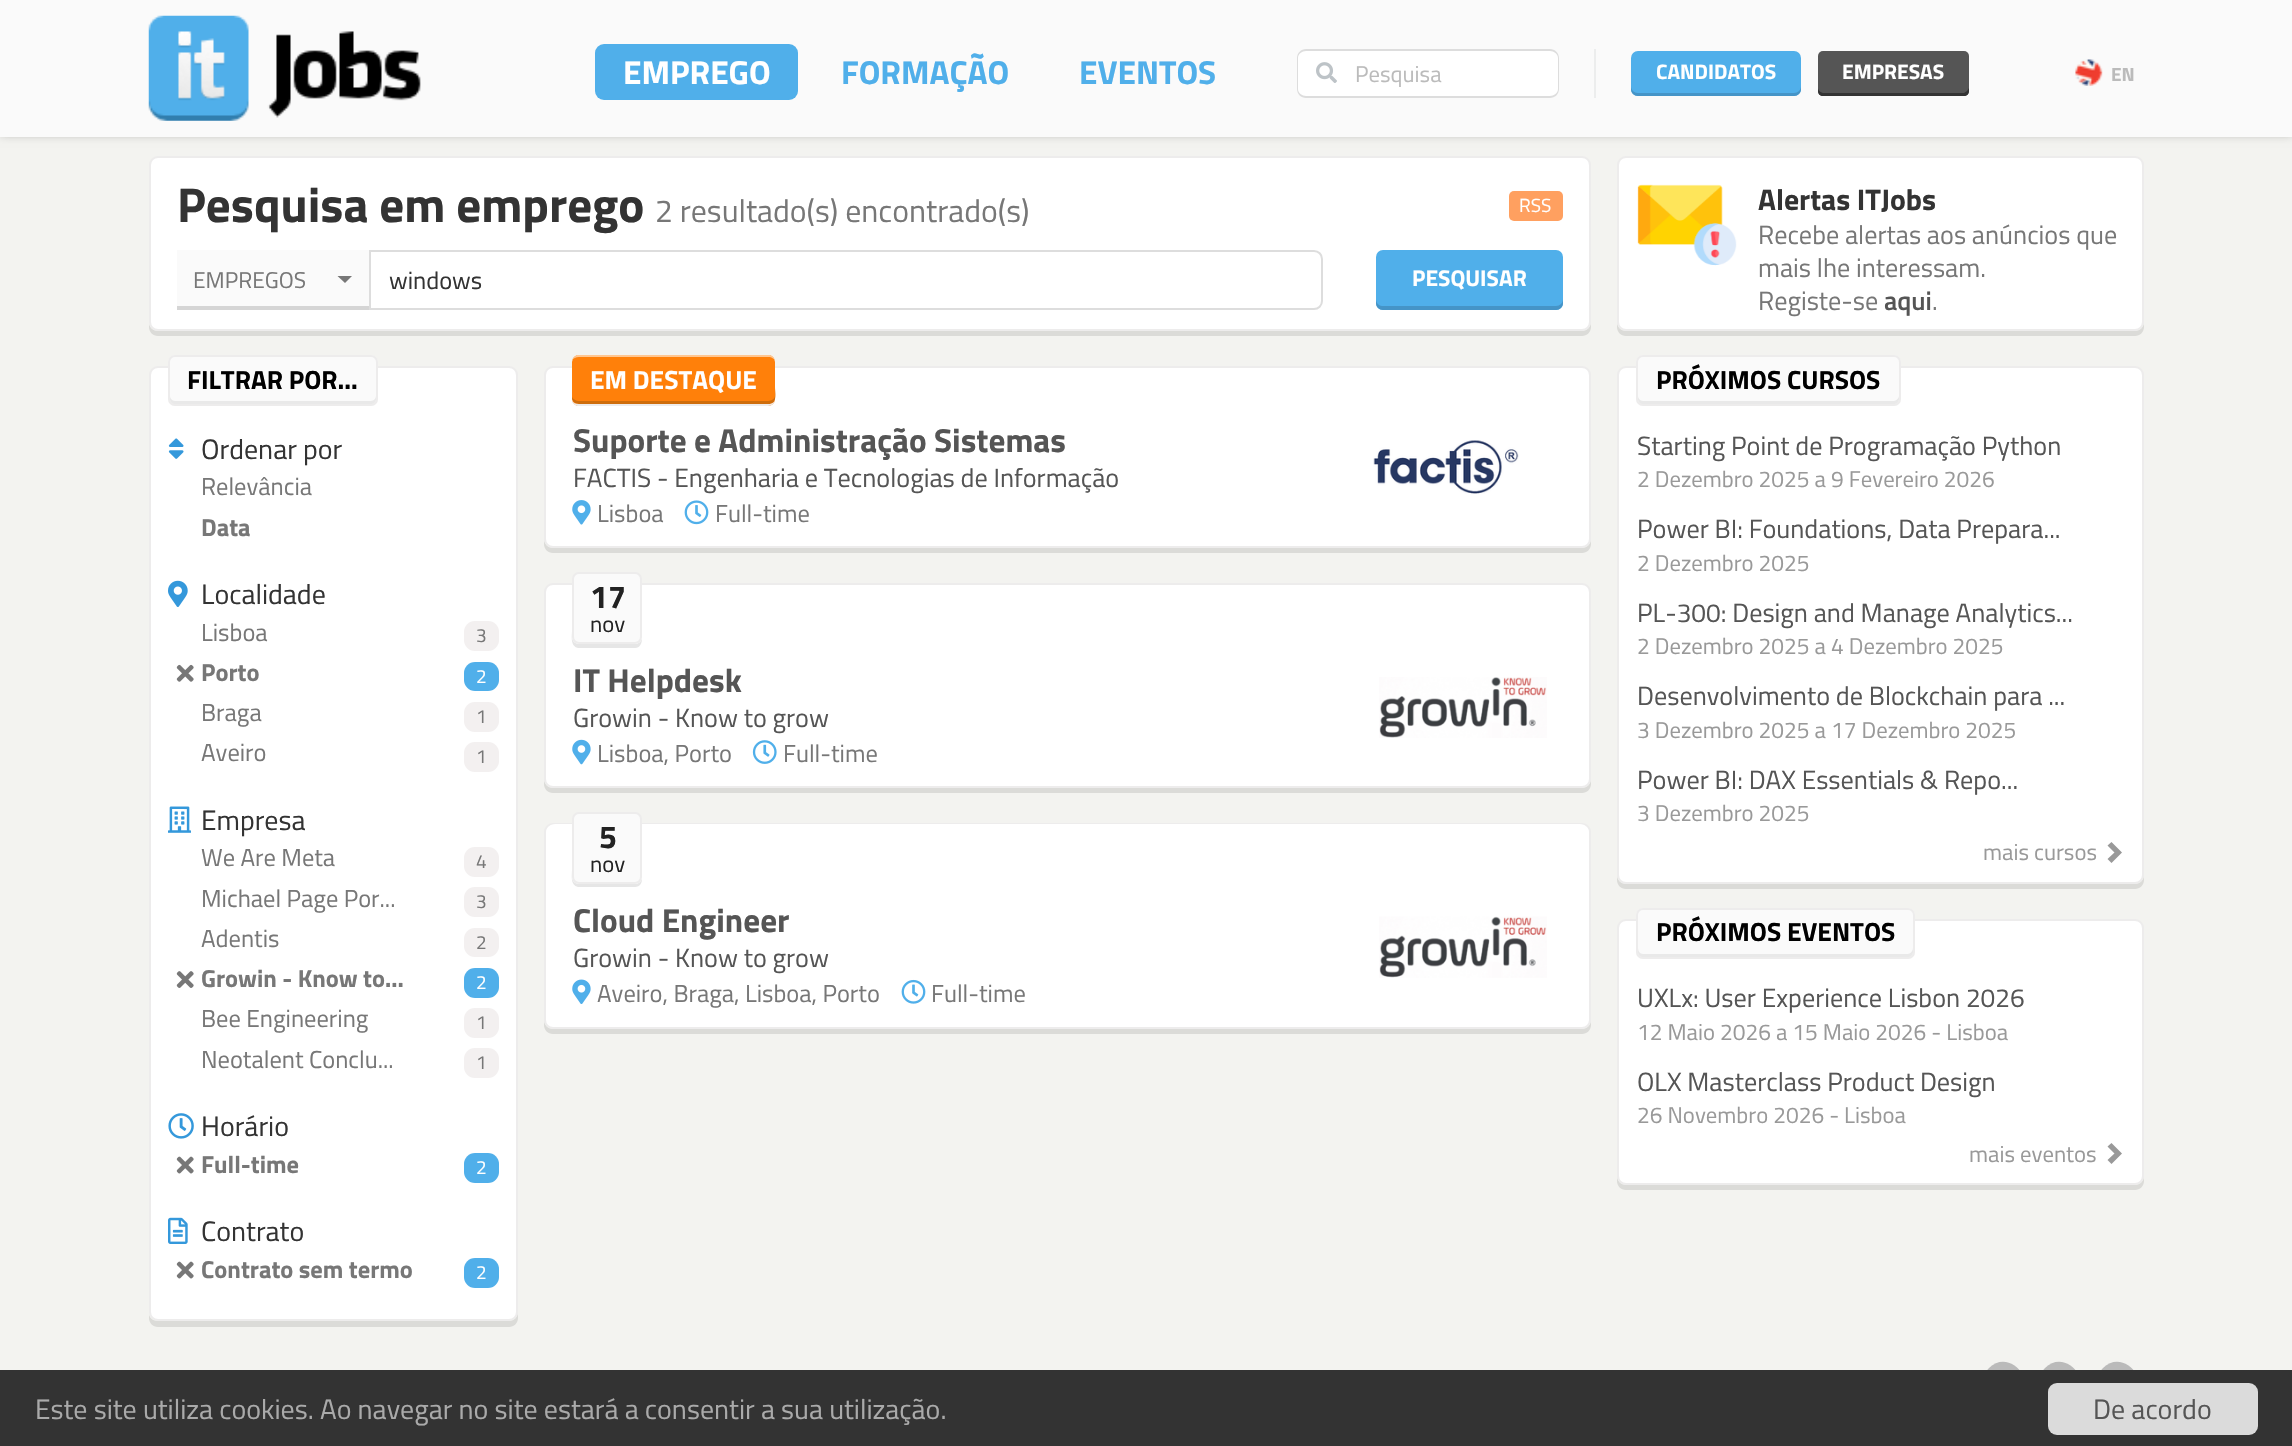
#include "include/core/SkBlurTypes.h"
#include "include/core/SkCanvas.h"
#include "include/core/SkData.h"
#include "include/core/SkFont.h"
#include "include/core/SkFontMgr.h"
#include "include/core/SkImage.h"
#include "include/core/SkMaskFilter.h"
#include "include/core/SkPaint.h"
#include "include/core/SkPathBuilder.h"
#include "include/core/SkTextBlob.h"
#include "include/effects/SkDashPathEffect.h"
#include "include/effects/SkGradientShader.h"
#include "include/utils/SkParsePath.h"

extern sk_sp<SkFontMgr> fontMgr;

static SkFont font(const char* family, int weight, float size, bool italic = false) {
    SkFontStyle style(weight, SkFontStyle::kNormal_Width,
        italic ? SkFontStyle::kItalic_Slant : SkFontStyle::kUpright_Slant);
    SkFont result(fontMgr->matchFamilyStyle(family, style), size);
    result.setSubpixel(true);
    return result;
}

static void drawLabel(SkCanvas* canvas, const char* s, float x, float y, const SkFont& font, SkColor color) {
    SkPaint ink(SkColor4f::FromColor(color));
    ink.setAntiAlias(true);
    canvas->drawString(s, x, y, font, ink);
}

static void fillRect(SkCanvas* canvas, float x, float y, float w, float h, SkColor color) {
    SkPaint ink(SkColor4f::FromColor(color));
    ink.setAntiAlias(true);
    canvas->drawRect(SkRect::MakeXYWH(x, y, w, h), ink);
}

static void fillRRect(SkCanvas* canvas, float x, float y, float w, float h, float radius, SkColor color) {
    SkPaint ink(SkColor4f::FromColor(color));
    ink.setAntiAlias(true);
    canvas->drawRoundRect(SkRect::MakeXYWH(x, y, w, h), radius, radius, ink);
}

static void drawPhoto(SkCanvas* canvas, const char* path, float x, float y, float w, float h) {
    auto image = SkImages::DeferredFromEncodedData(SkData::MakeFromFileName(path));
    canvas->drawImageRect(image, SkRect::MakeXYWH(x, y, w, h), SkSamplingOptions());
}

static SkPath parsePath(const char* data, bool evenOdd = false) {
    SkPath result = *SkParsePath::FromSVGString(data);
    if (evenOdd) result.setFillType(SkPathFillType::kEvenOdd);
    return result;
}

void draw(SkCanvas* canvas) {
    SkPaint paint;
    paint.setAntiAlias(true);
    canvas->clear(0xFFF3F3F0);
    paint.setColor(0x66000000);
    paint.setMaskFilter(SkMaskFilter::MakeBlur(kNormal_SkBlurStyle, 5));
    canvas->drawRect(SkRect::MakeXYWH(0, -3, 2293, 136), paint);
    paint.setMaskFilter(nullptr);
    fillRect(canvas, 0, 0, 2292, 137, 0xFFFAFAFA);
    drawPhoto(canvas, "assets/img1.png", 148, 15, 273, 106);
    fillRRect(canvas, 595, 44, 203, 56, 9, 0xFF50AFEA);
    SkFont font1 = font("Titillium Web", 700, 33.25f);
    drawLabel(canvas, "EMPREGO", 623, 84, font1, 0xFFFFFFFF);
    drawLabel(canvas, "FORMAÇÃO", 841, 84, font1, 0xFF50AFEA);
    drawLabel(canvas, "EVENTOS", 1079, 84, font1, 0xFF50AFEA);
    fillRect(canvas, 1594, 49, 2, 49, 0xFFECEDED);
    paint.setColor(0xFFFFFFFF);
    canvas->drawPath(parsePath("M1306 49H1355V98H1306C1301 98 1297 94 1297 89V58C1297 53 1301 49 1306 49Z"), paint);
    paint.setColor(0xFFDDDDDD);
    canvas->drawPath(parsePath("M1306 49H1354V98H1306C1301 98 1297 94 1297 89V58C1297 53 1301 49 1306 49ZM1306 51H1354V96H1306C1302 96 1298 93 1298 89V58C1298 54 1302 51 1306 51Z", true), paint);
    drawPhoto(canvas, "assets/img2.png", 1316, 62, 21, 21);
    paint.setColor(0xFFFFFFFF);
    canvas->drawPath(parsePath("M1355 49H1550C1555 49 1559 53 1559 58V89C1559 94 1555 98 1550 98H1355Z"), paint);
    paint.setColor(0xFFDDDDDD);
    canvas->drawPath(parsePath("M1354 49H1550C1555 49 1559 53 1559 58V89C1559 94 1555 98 1550 98H1354ZM1354 51H1550C1554 51 1558 54 1558 58V89C1558 93 1554 96 1550 96H1354Z", true), paint);
    SkFont font2 = font("Titillium Web", 400, 22.75f);
    drawLabel(canvas, "Pesquisa", 1355, 82, font2, 0xFFBBBBBB);
    fillRRect(canvas, 1631, 51, 170, 45, 7, 0xFF50AFEA);
    paint.setColor(0xFF4594C7);
    canvas->drawPath(parsePath("M1631 86V89C1631 93 1634 96 1638 96H1794C1798 96 1801 93 1801 89V86C1801 90 1798 93 1794 93H1638C1634 93 1631 90 1631 86Z"), paint);
    SkFont font3 = font("Titillium Web", 700, 21);
    drawLabel(canvas, "CANDIDATOS", 1656, 79, font3, 0xFFFFFFFF);
    fillRRect(canvas, 1818, 51, 151, 45, 5, 0xFF555555);
    paint.setColor(0xFF333333);
    canvas->drawPath(parsePath("M1818 88V91C1818 94 1820 96 1823 96H1964C1967 96 1969 94 1969 91V88L1967 91L1964 93H1824C1822 93 1818 91 1818 88Z"), paint);
    drawLabel(canvas, "EMPRESAS", 1842, 79, font3, 0xFFFFFFFF);
    drawPhoto(canvas, "assets/img3.png", 2075, 59, 28, 27);
    SkFont font4 = font("Titillium Web", 700, 19);
    drawLabel(canvas, "EN", 2111, 81, font4, 0xFFBBBBBB);
    paint.setColor(0xFFDBDBD8);
    canvas->drawPath(parsePath("M149 324V327C149 332 153 336 158 336H1582C1587 336 1591 332 1591 327V168V322C1591 327 1587 331 1582 331H158C153 331 150 328 149 324Z"), paint);
    paint.setColor(0xFFFFFFFF);
    canvas->drawRoundRect(SkRect::MakeXYWH(150, 157, 1440, 173), 8, 8, paint);
    paint.setStroke(true);
    paint.setStrokeWidth(2);
    paint.setColor(0xFFEDECEC);
    canvas->drawRoundRect(SkRect::MakeXYWH(150, 157, 1440, 173), 8, 8, paint);
    SkFont font5 = font("Titillium Web", 700, 49);
    drawLabel(canvas, "Pesquisa em emprego", 177, 222, font5, 0xFF333333);
    SkFont font6 = font("Titillium Web", 400, 31.8f);
    drawLabel(canvas, "2 resultado(s) encontrado(s)", 655, 222, font6, 0xFF777777);
    fillRRect(canvas, 1509, 191, 54, 30, 5, 0xFFFFA060);
    SkFont font7 = font("Titillium Web", 400, 19);
    drawLabel(canvas, "RSS", 1519, 212, font7, 0xFFFFFFFF);
    fillRect(canvas, 177, 250, 192, 56, 0xFFFAFAFA);
    fillRect(canvas, 177, 306, 192, 4, 0xFFD5D5D5);
    drawLabel(canvas, "EMPREGOS", 193, 288, font2, 0xFF777777);
    paint.setStroke(false);
    paint.setColor(0xFF777777);
    canvas->drawPath(parsePath("M337.5 276H352L345 283Z"), paint);
    paint.setStroke(true);
    paint.setColor(0xFFDDDDDD);
    canvas->drawPath(parsePath("M370 251H1314C1318.5 251 1322 254.5 1322 259V301C1322 305.5 1318.5 309 1314 309H370Z"), paint);
    SkFont font8 = font("Titillium Web", 400, 24.5f);
    drawLabel(canvas, "windows", 389, 289, font8, 0xFF333333);
    fillRRect(canvas, 1376, 250, 187, 60, 7, 0xFF50AFEA);
    paint.setStroke(false);
    paint.setColor(0xFF4594C7);
    canvas->drawPath(parsePath("M1376 299V303C1376 307 1379 310 1383 310H1556C1560 310 1563 307 1563 303V299C1563 303 1560 306 1556 306H1382C1379 306 1376 303 1376 299Z"), paint);
    SkFont font9 = font("Titillium Web", 700, 22.75f);
    drawLabel(canvas, "PESQUISAR", 1412, 286, font9, 0xFFFFFFFF);
    paint.setColor(0xFFDBDBD8);
    canvas->drawPath(parsePath("M1617 322V327C1617 332 1621 336 1626 336H2135C2140 336 2144 332 2144 327V168V322C2144 327 2140 331 2135 331H1626C1621 331 1617 327 1617 322Z"), paint);
    paint.setColor(0xFFFFFFFF);
    canvas->drawRoundRect(SkRect::MakeXYWH(1618, 157, 525, 173), 8, 8, paint);
    paint.setStroke(true);
    paint.setColor(0xFFEDECEC);
    canvas->drawRoundRect(SkRect::MakeXYWH(1618, 157, 525, 173), 8, 8, paint);
    drawPhoto(canvas, "assets/img4.png", 1637, 184, 100, 82);
    SkFont font10 = font("Titillium Web", 700, 29.75f);
    drawLabel(canvas, "Alertas ITJobs", 1758, 210, font10, 0xFF333333);
    SkFont font11 = font("Titillium Web", 400, 26.25f);
    drawLabel(canvas, "Recebe alertas aos anúncios que", 1758, 244, font11, 0xFF777777);
    drawLabel(canvas, "mais lhe interessam.", 1758, 277, font11, 0xFF777777);
    drawLabel(canvas, "Registe-se", 1758, 310, font11, 0xFF777777);
    SkFont font12 = font("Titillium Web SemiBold", 600, 26.25f);
    drawLabel(canvas, "aqui", 1884, 310, font12, 0xFF555555);
    drawLabel(canvas, ".", 1932, 310, font11, 0xFF777777);
    paint.setStroke(false);
    paint.setColor(0xFFDBDBD8);
    canvas->drawPath(parsePath("M149 1315V1318C149 1323 153 1327 158 1327H509C514 1327 518 1323 518 1318V1312C518 1317 514 1321 509 1321H158C153 1321 150 1318 149 1315Z"), paint);
    paint.setColor(0xFFFFFFFF);
    canvas->drawRoundRect(SkRect::MakeXYWH(150, 367, 367, 953), 8, 8, paint);
    paint.setStroke(true);
    paint.setColor(0xFFEDECEC);
    canvas->drawRoundRect(SkRect::MakeXYWH(150, 367, 367, 953), 8, 8, paint);
    fillRRect(canvas, 168, 355, 210, 51, 7, 0xFFFAFAFA);
    paint.setStroke(false);
    paint.setColor(0xFFE9E9E9);
    canvas->drawPath(parsePath("M170 396V399C170 402 172 404 175 404H371C374 404 376 402 376 399V396C376 398 374 401 371 401H175C172 401 170 398 170 396Z"), paint);
    paint.setStroke(true);
    paint.setColor(0xFFEDECEC);
    canvas->drawRoundRect(SkRect::MakeXYWH(169, 356, 208, 49), 6, 6, paint);
    SkFont font13 = font("Titillium Web", 700, 26.25f);
    drawLabel(canvas, "FILTRAR POR...", 187, 389, font13, 0xFF000000);
    drawPhoto(canvas, "assets/img5.png", 168, 438, 16, 21);
    SkFont font14 = font("Titillium Web", 400, 28);
    drawLabel(canvas, "Ordenar por", 201, 459, font14, 0xFF333333);
    drawLabel(canvas, "Relevância", 201, 495, font8, 0xFF777777);
    SkFont font15 = font("Titillium Web", 700, 24.5f);
    drawLabel(canvas, "Data", 201, 536, font15, 0xFF777777);
    drawPhoto(canvas, "assets/img6.png", 168, 580, 20, 27);
    drawLabel(canvas, "Localidade", 201, 604, font14, 0xFF333333);
    drawLabel(canvas, "Lisboa", 201, 641, font8, 0xFF777777);
    fillRRect(canvas, 464, 621, 35, 30, 11, 0xFFF3F0F0);
    drawLabel(canvas, "3", 476, 642, font7, 0xFF777777);
    drawPhoto(canvas, "assets/img7.png", 176, 664, 18, 18);
    drawLabel(canvas, "Porto", 201, 681, font15, 0xFF777777);
    fillRRect(canvas, 464, 662, 35, 29, 11, 0xFF50AFEA);
    drawLabel(canvas, "2", 476, 683, font7, 0xFFFFFFFF);
    drawLabel(canvas, "Braga", 201, 721, font8, 0xFF777777);
    fillRRect(canvas, 464, 702, 35, 30, 11, 0xFFF3F0F0);
    drawLabel(canvas, "1", 476, 723, font7, 0xFF777777);
    drawLabel(canvas, "Aveiro", 201, 761, font8, 0xFF777777);
    fillRRect(canvas, 464, 742, 35, 30, 11, 0xFFF3F0F0);
    drawLabel(canvas, "1", 476, 763, font7, 0xFF777777);
    drawPhoto(canvas, "assets/img8.png", 168, 806, 23, 27);
    drawLabel(canvas, "Empresa", 201, 830, font14, 0xFF333333);
    drawLabel(canvas, "We Are Meta", 201, 866, font8, 0xFF777777);
    fillRRect(canvas, 464, 847, 35, 30, 11, 0xFFF3F0F0);
    drawLabel(canvas, "4", 476, 868, font7, 0xFF777777);
    drawLabel(canvas, "Michael Page Por...", 201, 907, font8, 0xFF777777);
    fillRRect(canvas, 464, 887, 35, 30, 11, 0xFFF3F0F0);
    drawLabel(canvas, "3", 476, 908, font7, 0xFF777777);
    drawLabel(canvas, "Adentis", 201, 947, font8, 0xFF777777);
    fillRRect(canvas, 464, 928, 35, 29, 11, 0xFFF3F0F0);
    drawLabel(canvas, "2", 476, 949, font7, 0xFF777777);
    drawPhoto(canvas, "assets/img9.png", 176, 971, 18, 17);
    drawLabel(canvas, "Growin - Know to...", 201, 987, font15, 0xFF777777);
    fillRRect(canvas, 464, 968, 35, 30, 11, 0xFF50AFEA);
    drawLabel(canvas, "2", 476, 989, font7, 0xFFFFFFFF);
    drawLabel(canvas, "Bee Engineering", 201, 1027, font8, 0xFF777777);
    fillRRect(canvas, 464, 1008, 35, 30, 11, 0xFFF3F0F0);
    drawLabel(canvas, "1", 476, 1029, font7, 0xFF777777);
    drawLabel(canvas, "Neotalent Conclu...", 201, 1068, font8, 0xFF777777);
    fillRRect(canvas, 464, 1048, 35, 30, 11, 0xFFF3F0F0);
    drawLabel(canvas, "1", 476, 1069, font7, 0xFF777777);
    drawPhoto(canvas, "assets/img10.png", 168, 1113, 26, 26);
    drawLabel(canvas, "Horário", 201, 1136, font14, 0xFF333333);
    drawPhoto(canvas, "assets/img11.png", 176, 1156, 18, 18);
    drawLabel(canvas, "Full-time", 201, 1173, font15, 0xFF777777);
    fillRRect(canvas, 464, 1153, 35, 30, 11, 0xFF50AFEA);
    drawLabel(canvas, "2", 476, 1174, font7, 0xFFFFFFFF);
    drawPhoto(canvas, "assets/img12.png", 168, 1217, 20, 27);
    drawLabel(canvas, "Contrato", 201, 1241, font14, 0xFF333333);
    drawPhoto(canvas, "assets/img11.png", 176, 1261, 18, 18);
    drawLabel(canvas, "Contrato sem termo", 201, 1278, font15, 0xFF777777);
    fillRRect(canvas, 464, 1258, 35, 30, 11, 0xFF50AFEA);
    drawLabel(canvas, "2", 476, 1279, font7, 0xFFFFFFFF);
    paint.setStroke(false);
    paint.setColor(0xFFDBDBD8);
    canvas->drawPath(parsePath("M544 378V544C544 549 548 553 553 553H1582C1587 553 1591 549 1591 544V378V539C1591 544 1587 548 1582 548H553C548 548 544 544 544 539Z"), paint);
    paint.setColor(0xFFFFFFFF);
    canvas->drawRoundRect(SkRect::MakeXYWH(545, 367, 1045, 180), 8, 8, paint);
    paint.setStroke(true);
    paint.setColor(0xFFEDECEC);
    canvas->drawRoundRect(SkRect::MakeXYWH(545, 367, 1045, 180), 8, 8, paint);
    fillRRect(canvas, 572, 355, 203, 51, 7, 0xFFFF800A);
    paint.setStroke(false);
    paint.setColor(0xFFCE6D0C);
    canvas->drawPath(parsePath("M572 397C572 401 575 404 579 404H768C778 404 775 393 775 387V361V396C775 398 772 401 768 401H579C576 401 573 399 572 397Z"), paint);
    paint.setColor(0xFFFFC691);
    canvas->drawPath(parsePath("M579 357C576 357 573 358 572 361V360C573 358 575 356 577 355H770C773 356 775 359 775 362C775 359 772 357 768 357Z"), paint);
    paint.setColor(0xFFEDECEC);
    canvas->drawPath(parsePath("M768 406C772 406 775 403 775 399C775 402 772 404 768 404H579C576 404 573 403 572 400C572 404 576 406 579 406Z"), paint);
    drawLabel(canvas, "EM DESTAQUE", 590, 389, font13, 0xFFFFFFFF);
    drawLabel(canvas, "Suporte e Administração Sistemas", 573, 452, font1, 0xFF555555);
    drawPhoto(canvas, "assets/img13.png", 1373, 440, 146, 54);
    drawLabel(canvas, "FACTIS - Engenharia e Tecnologias de Informação", 573, 487, font11, 0xFF555555);
    drawPhoto(canvas, "assets/img14.png", 572, 500, 19, 25);
    drawLabel(canvas, "Lisboa", 597, 522, font8, 0xFF777777);
    drawPhoto(canvas, "assets/img15.png", 684, 500, 25, 25);
    drawLabel(canvas, "Full-time", 715, 522, font8, 0xFF777777);
    paint.setColor(0xFFDBDBD8);
    canvas->drawPath(parsePath("M544 595V784C544 789 548 793 553 793H1582C1587 793 1591 789 1591 784V595V779C1591 784 1587 788 1582 788H553C548 788 544 784 544 779Z"), paint);
    paint.setColor(0xFFFFFFFF);
    canvas->drawRoundRect(SkRect::MakeXYWH(545, 584, 1045, 203), 8, 8, paint);
    paint.setStroke(true);
    paint.setColor(0xFFEDECEC);
    canvas->drawRoundRect(SkRect::MakeXYWH(545, 584, 1045, 203), 8, 8, paint);
    paint.setStroke(false);
    paint.setColor(0xFFE6E6E6);
    canvas->drawPath(parsePath("M572 581V631C572 636 570 646 578 648H635C640 648 642 643 642 639C641 642 638 644 635 644H579C575 644 572 641 572 637Z"), paint);
    paint.setColor(0xFFFAFAFA);
    canvas->drawRoundRect(SkRect::MakeXYWH(573, 573, 68, 70), 6, 6, paint);
    paint.setStroke(true);
    paint.setColor(0xFFEDECEC);
    canvas->drawRoundRect(SkRect::MakeXYWH(573, 573, 68, 70), 6, 6, paint);
    SkFont font16 = font("Titillium Web", 700, 32);
    drawLabel(canvas, "17", 590, 608, font16, 0xFF222222);
    drawLabel(canvas, "nov", 590, 632, font2, 0xFF222222);
    drawLabel(canvas, "IT Helpdesk", 573, 692, font1, 0xFF555555);
    drawPhoto(canvas, "assets/img16.png", 1379, 677, 168, 61);
    drawLabel(canvas, "Growin - Know to grow", 573, 727, font11, 0xFF555555);
    drawPhoto(canvas, "assets/img17.png", 572, 739, 19, 26);
    drawLabel(canvas, "Lisboa, Porto", 597, 762, font8, 0xFF777777);
    drawPhoto(canvas, "assets/img18.png", 752, 740, 25, 24);
    drawLabel(canvas, "Full-time", 783, 762, font8, 0xFF777777);
    paint.setStroke(false);
    paint.setColor(0xFFDBDBD8);
    canvas->drawPath(parsePath("M544 835V1025C544 1030 548 1034 553 1034H1582C1587 1034 1591 1030 1591 1025V835V1020C1591 1025 1587 1029 1582 1029H553C548 1029 544 1025 544 1020Z"), paint);
    paint.setColor(0xFFFFFFFF);
    canvas->drawRoundRect(SkRect::MakeXYWH(545, 824, 1045, 204), 8, 8, paint);
    paint.setStroke(true);
    paint.setColor(0xFFEDECEC);
    canvas->drawRoundRect(SkRect::MakeXYWH(545, 824, 1045, 204), 8, 8, paint);
    paint.setStroke(false);
    paint.setColor(0xFFFFFFFF);
    canvas->drawPath(parsePath("M555 824H1580C1585 824 1589 828 1589 833V884H546V833C546 828 550 824 555 824Z"), paint);
    paint.setColor(0xFFE6E6E6);
    canvas->drawPath(parsePath("M572 821V870C572 876 570 885 578 887H635C640 887 642 883 642 879C641 882 638 884 635 884H579C575 884 572 881 572 877Z"), paint);
    paint.setColor(0xFFFAFAFA);
    canvas->drawRoundRect(SkRect::MakeXYWH(573, 813, 68, 70), 6, 6, paint);
    paint.setStroke(true);
    paint.setColor(0xFFEDECEC);
    canvas->drawRoundRect(SkRect::MakeXYWH(573, 813, 68, 70), 6, 6, paint);
    drawLabel(canvas, "5", 599, 848, font16, 0xFF222222);
    drawLabel(canvas, "nov", 590, 872, font2, 0xFF222222);
    drawLabel(canvas, "Cloud Engineer", 573, 932, font1, 0xFF555555);
    drawPhoto(canvas, "assets/img19.png", 1379, 916, 168, 62);
    drawLabel(canvas, "Growin - Know to grow", 573, 967, font11, 0xFF555555);
    drawPhoto(canvas, "assets/img20.png", 572, 979, 19, 25);
    drawLabel(canvas, "Aveiro, Braga, Lisboa, Porto", 597, 1002, font8, 0xFF777777);
    drawPhoto(canvas, "assets/img21.png", 901, 979, 25, 25);
    drawLabel(canvas, "Full-time", 931, 1002, font8, 0xFF777777);
    paint.setStroke(false);
    paint.setColor(0xFFDBDBD8);
    canvas->drawPath(parsePath("M1617 875V880C1617 885 1621 889 1626 889H2135C2140 889 2144 885 2144 880V378V875C2144 880 2140 884 2135 884H1626C1621 884 1617 880 1617 875Z"), paint);
    paint.setColor(0xFFFFFFFF);
    canvas->drawRoundRect(SkRect::MakeXYWH(1618, 367, 525, 516), 8, 8, paint);
    paint.setStroke(true);
    paint.setColor(0xFFEDECEC);
    canvas->drawRoundRect(SkRect::MakeXYWH(1618, 367, 525, 516), 8, 8, paint);
    fillRRect(canvas, 1636, 355, 265, 51, 7, 0xFFFAFAFA);
    paint.setStroke(false);
    paint.setColor(0xFFE9E9E9);
    canvas->drawPath(parsePath("M1638 396V399C1638 402 1640 404 1643 404H1894C1897 404 1899 402 1899 399V396C1899 398 1896 401 1894 401H1643C1640 401 1638 398 1638 396Z"), paint);
    paint.setStroke(true);
    paint.setColor(0xFFEDECEC);
    canvas->drawRoundRect(SkRect::MakeXYWH(1637, 356, 263, 49), 6, 6, paint);
    drawLabel(canvas, "PRÓXIMOS CURSOS", 1656, 389, font13, 0xFF000000);
    drawLabel(canvas, "Starting Point de Programação Python", 1637, 455, font11, 0xFF555555);
    drawLabel(canvas, "2 Dezembro 2025 a 9 Fevereiro 2026", 1637, 487, font2, 0xFF999999);
    drawLabel(canvas, "Power BI: Foundations, Data Prepara...", 1637, 538, font11, 0xFF555555);
    drawLabel(canvas, "2 Dezembro 2025", 1637, 571, font2, 0xFF999999);
    drawLabel(canvas, "PL-300: Design and Manage Analytics...", 1637, 622, font11, 0xFF555555);
    drawLabel(canvas, "2 Dezembro 2025 a 4 Dezembro 2025", 1637, 654, font2, 0xFF999999);
    drawLabel(canvas, "Desenvolvimento de Blockchain para ...", 1637, 705, font11, 0xFF555555);
    drawLabel(canvas, "3 Dezembro 2025 a 17 Dezembro 2025", 1637, 738, font2, 0xFF999999);
    drawLabel(canvas, "Power BI: DAX Essentials & Repo...", 1637, 789, font11, 0xFF555555);
    drawLabel(canvas, "3 Dezembro 2025", 1637, 821, font2, 0xFF999999);
    drawLabel(canvas, "mais cursos", 1983, 860, font2, 0xFF999999);
    paint.setStroke(false);
    paint.setColor(0xFF999999);
    canvas->drawPath(parsePath("M2122 852.5L2111.5 863L2107.5 859L2114.5 852.5L2107.5 845.5L2111.5 842Z"), paint);
    paint.setColor(0xFFDBDBD8);
    canvas->drawPath(parsePath("M1617 1176V1181C1617 1186 1621 1190 1626 1190H2135C2140 1190 2144 1186 2144 1181V931V1176C2144 1181 2140 1185 2135 1185H1626C1621 1185 1617 1181 1617 1176Z"), paint);
    paint.setColor(0xFFFFFFFF);
    canvas->drawRoundRect(SkRect::MakeXYWH(1618, 920, 525, 264), 8, 8, paint);
    paint.setStroke(true);
    paint.setColor(0xFFEDECEC);
    canvas->drawRoundRect(SkRect::MakeXYWH(1618, 920, 525, 264), 8, 8, paint);
    fillRRect(canvas, 1636, 908, 279, 51, 7, 0xFFFAFAFA);
    paint.setStroke(false);
    paint.setColor(0xFFE9E9E9);
    canvas->drawPath(parsePath("M1638 948V952C1638 955 1640 957 1643 957H1908C1911 957 1913 955 1913 952V948C1913 951 1910 954 1908 954H1643C1640 954 1638 951 1638 948Z"), paint);
    paint.setStroke(true);
    paint.setColor(0xFFEDECEC);
    canvas->drawRoundRect(SkRect::MakeXYWH(1637, 909, 277, 49), 6, 6, paint);
    drawLabel(canvas, "PRÓXIMOS EVENTOS", 1656, 941, font13, 0xFF000000);
    drawLabel(canvas, "UXLx: User Experience Lisbon 2026", 1637, 1007, font11, 0xFF555555);
    drawLabel(canvas, "12 Maio 2026 a 15 Maio 2026 - Lisboa", 1637, 1040, font2, 0xFF999999);
    drawLabel(canvas, "OLX Masterclass Product Design", 1637, 1091, font11, 0xFF555555);
    drawLabel(canvas, "26 Novembro 2026 - Lisboa", 1637, 1123, font2, 0xFF999999);
    drawLabel(canvas, "mais eventos", 1969, 1162, font2, 0xFF999999);
    paint.setStroke(false);
    paint.setColor(0xFF999999);
    canvas->drawPath(parsePath("M2122 1153.5L2111.5 1164L2107.5 1160L2114.5 1153.5L2107.5 1146.5L2111.5 1143Z"), paint);
    paint.setColor(0xFFBABABA);
    canvas->drawPath(parsePath("M1989 1368C2008 1349 2037 1378 2018 1397C1999 1416 1970 1387 1989 1368Z"), paint);
    canvas->drawPath(parsePath("M2045 1368C2064 1349 2093 1378 2074 1397C2055 1416 2026 1387 2045 1368Z"), paint);
    canvas->drawPath(parsePath("M2103 1368C2122 1349 2151 1378 2132 1397C2113 1416 2084 1387 2103 1368Z"), paint);
    fillRect(canvas, 0, 1370, 2292, 76, 0xFF333333);
    drawLabel(canvas, "Este site utiliza cookies. Ao navegar no site estará a consentir a sua utilização.", 35, 1419, font14, 0xFFAAAAAA);
    fillRRect(canvas, 2048, 1383, 210, 52, 9, 0xFFDBDBDB);
    drawLabel(canvas, "De acordo", 2093, 1419, font14, 0xFF555555);
}
